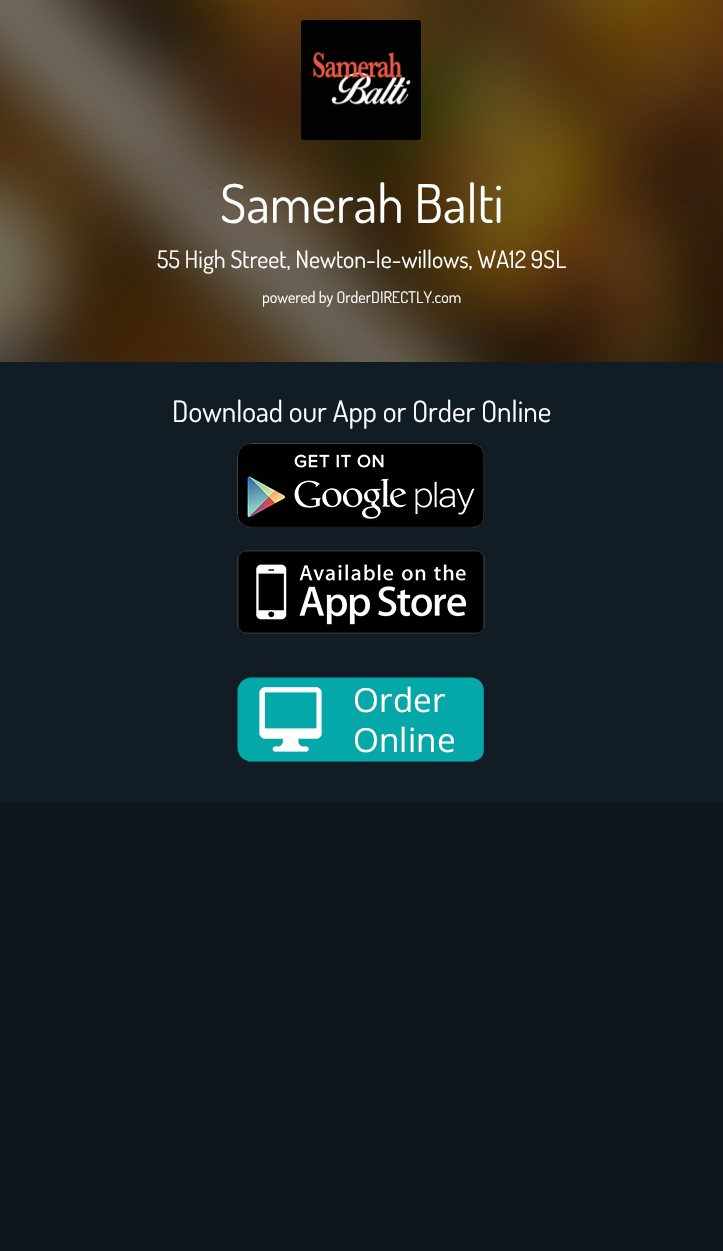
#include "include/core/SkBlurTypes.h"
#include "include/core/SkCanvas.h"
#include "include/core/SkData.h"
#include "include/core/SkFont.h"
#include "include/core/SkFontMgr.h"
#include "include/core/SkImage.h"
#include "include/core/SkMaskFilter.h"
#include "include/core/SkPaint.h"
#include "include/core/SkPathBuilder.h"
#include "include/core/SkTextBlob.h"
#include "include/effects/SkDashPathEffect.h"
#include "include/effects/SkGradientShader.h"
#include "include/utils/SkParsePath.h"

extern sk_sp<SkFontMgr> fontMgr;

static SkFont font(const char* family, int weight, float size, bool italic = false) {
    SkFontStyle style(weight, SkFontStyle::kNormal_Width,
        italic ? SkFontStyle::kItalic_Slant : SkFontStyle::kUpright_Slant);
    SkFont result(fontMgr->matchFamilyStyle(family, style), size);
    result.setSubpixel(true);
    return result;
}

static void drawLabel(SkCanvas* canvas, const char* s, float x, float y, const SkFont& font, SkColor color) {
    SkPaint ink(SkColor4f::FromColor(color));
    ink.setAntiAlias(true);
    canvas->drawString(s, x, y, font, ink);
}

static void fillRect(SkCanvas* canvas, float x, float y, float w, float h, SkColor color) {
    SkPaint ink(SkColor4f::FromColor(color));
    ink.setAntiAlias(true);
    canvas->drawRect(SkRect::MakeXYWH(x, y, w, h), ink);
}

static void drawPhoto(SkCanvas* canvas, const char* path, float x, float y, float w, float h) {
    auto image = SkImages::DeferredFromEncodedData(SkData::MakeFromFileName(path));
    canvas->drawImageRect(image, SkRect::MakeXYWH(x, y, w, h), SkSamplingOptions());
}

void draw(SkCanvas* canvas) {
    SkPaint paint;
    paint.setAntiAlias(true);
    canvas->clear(0xFF0F171E);
    drawPhoto(canvas, "assets/img1.png", 0, 0, 723, 362);
    drawPhoto(canvas, "assets/img2.png", 0, 0, 723, 362);
    drawPhoto(canvas, "assets/img3.png", 301, 20, 120, 120);
    SkFont font1 = font("Dosis", 400, 53.5f);
    drawLabel(canvas, "Samerah Balti", 220, 223, font1, 0xFFFFFFFF);
    SkFont font2 = font("Dosis", 400, 24);
    drawLabel(canvas, "55 High Street, Newton-le-willows, WA12 9SL", 157, 268, font2, 0xFFFFFFFF);
    SkFont font3 = font("Dosis", 400, 16);
    drawLabel(canvas, "powered by OrderDIRECTLY.com", 262, 303, font3, 0xFFFFFFFF);
    fillRect(canvas, 0, 362, 723, 441, 0xFF121C25);
    SkFont font4 = font("Dosis", 400, 29.3f);
    drawLabel(canvas, "Download our App or Order Online", 172, 422, font4, 0xFFFFFFFF);
    drawPhoto(canvas, "assets/img4.png", 237, 443, 247, 85);
    drawPhoto(canvas, "assets/img5.png", 237, 550, 248, 84);
    drawPhoto(canvas, "assets/img6.png", 237, 677, 247, 85);
}
